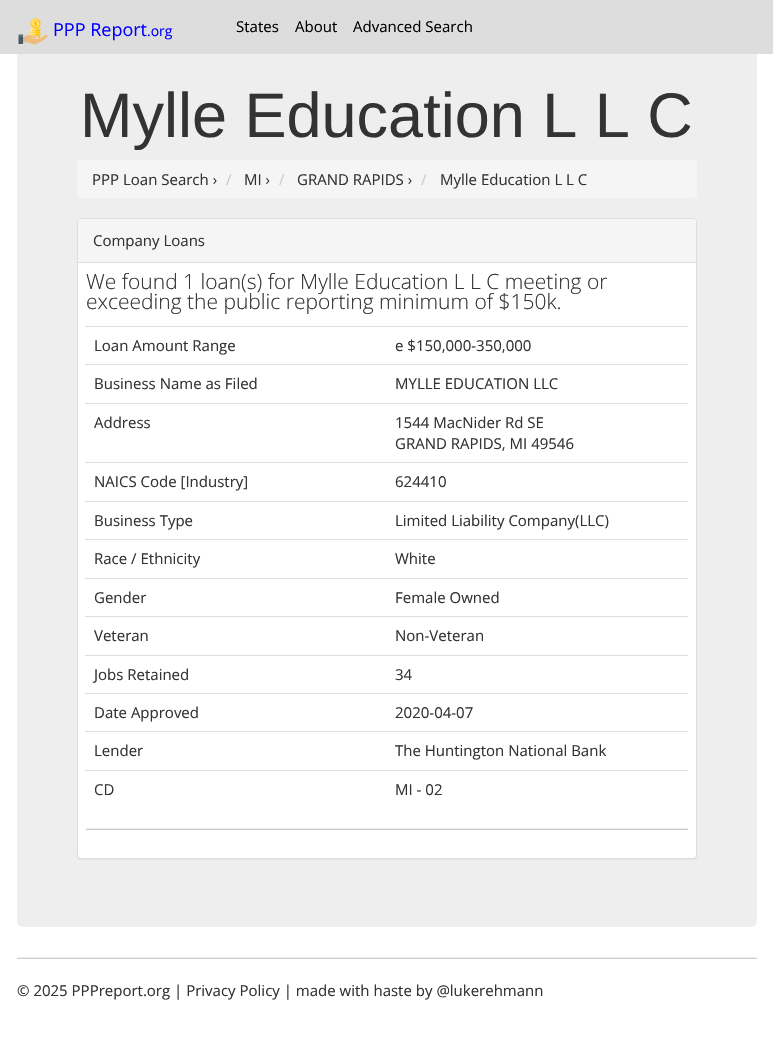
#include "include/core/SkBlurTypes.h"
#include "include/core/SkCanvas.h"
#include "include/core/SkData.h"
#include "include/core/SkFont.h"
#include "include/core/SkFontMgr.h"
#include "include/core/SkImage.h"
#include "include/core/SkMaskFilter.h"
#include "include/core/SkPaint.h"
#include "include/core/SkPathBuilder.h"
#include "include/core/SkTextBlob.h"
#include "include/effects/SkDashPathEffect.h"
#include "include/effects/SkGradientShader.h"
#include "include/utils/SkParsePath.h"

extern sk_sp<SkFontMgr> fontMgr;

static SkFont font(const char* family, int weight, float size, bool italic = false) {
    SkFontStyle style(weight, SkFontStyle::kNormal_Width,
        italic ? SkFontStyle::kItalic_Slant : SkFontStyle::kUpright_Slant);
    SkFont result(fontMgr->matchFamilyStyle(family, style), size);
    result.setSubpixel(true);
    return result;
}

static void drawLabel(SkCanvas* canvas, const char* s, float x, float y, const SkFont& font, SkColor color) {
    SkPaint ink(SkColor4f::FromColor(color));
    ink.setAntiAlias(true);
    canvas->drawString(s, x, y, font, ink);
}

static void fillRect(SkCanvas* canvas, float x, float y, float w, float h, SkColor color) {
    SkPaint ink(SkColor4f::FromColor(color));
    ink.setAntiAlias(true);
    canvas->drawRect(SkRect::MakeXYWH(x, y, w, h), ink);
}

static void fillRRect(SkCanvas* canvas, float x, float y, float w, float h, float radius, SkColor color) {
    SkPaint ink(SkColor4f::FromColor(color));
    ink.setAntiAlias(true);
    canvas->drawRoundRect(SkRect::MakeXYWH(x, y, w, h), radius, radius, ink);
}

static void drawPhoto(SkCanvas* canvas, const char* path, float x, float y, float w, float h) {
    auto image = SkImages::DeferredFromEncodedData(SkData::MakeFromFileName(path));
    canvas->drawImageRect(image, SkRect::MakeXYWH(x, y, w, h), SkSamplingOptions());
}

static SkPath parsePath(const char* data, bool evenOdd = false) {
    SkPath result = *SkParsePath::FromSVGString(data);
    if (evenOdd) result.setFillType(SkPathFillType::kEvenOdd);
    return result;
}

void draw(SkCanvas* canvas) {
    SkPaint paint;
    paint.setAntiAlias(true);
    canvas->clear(0xFFFFFFFF);
    fillRRect(canvas, 17, 0, 740, 927, 6, 0xFFEEEEEE);
    fillRect(canvas, 0, 0, 773, 54, 0xFFDDDDDD);
    drawPhoto(canvas, "assets/img1.png", 18, 18, 30, 27);
    SkFont font1 = font("Open Sans", 400, 18);
    drawLabel(canvas, "PPP Report", 53, 36, font1, 0xFF0000FF);
    SkFont font2 = font("Open Sans", 400, 14);
    drawLabel(canvas, ".org", 147, 36, font2, 0xFF0000FF);
    SkFont font3 = font("Open Sans", 400, 15);
    drawLabel(canvas, "States", 236, 32, font3, 0xFF000000);
    drawLabel(canvas, "About", 295, 32, font3, 0xFF000000);
    drawLabel(canvas, "Advanced Search", 353, 32, font3, 0xFF000000);
    SkFont font4 = font("Liberation Sans", 400, 63);
    drawLabel(canvas, "Mylle Education L L C", 80, 137, font4, 0xFF333333);
    fillRRect(canvas, 77, 160, 620, 38, 4, 0xFFF5F5F5);
    drawLabel(canvas, "PPP Loan Search ›", 92, 185, font3, 0xFF333333);
    drawLabel(canvas, "/", 226, 185, font3, 0xFFCCCCCC);
    drawLabel(canvas, "MI ›", 244, 185, font3, 0xFF333333);
    drawLabel(canvas, "/", 279, 185, font3, 0xFFCCCCCC);
    drawLabel(canvas, "GRAND RAPIDS ›", 297, 185, font3, 0xFF333333);
    drawLabel(canvas, "/", 421, 185, font3, 0xFFCCCCCC);
    drawLabel(canvas, "Mylle Education L L C", 440, 185, font3, 0xFF333333);
    paint.setColor(0x0D000000);
    paint.setMaskFilter(SkMaskFilter::MakeBlur(kNormal_SkBlurStyle, 0.5f));
    canvas->drawRoundRect(SkRect::MakeXYWH(77, 219, 620, 641), 4, 4, paint);
    paint.setMaskFilter(nullptr);
    paint.setColor(0xFFFFFFFF);
    canvas->drawRoundRect(SkRect::MakeXYWH(77.5f, 218.5f, 619, 640), 3.5f, 3.5f, paint);
    paint.setStroke(true);
    paint.setStrokeWidth(1);
    paint.setColor(0xFFDDDDDD);
    canvas->drawRoundRect(SkRect::MakeXYWH(77.5f, 218.5f, 619, 640), 3.5f, 3.5f, paint);
    paint.setStroke(false);
    paint.setColor(0xFFF5F5F5);
    canvas->drawPath(parsePath("M81 219H693C694.5 219 696 220.5 696 222V263H78V222C78 220.5 79.5 219 81 219Z"), paint);
    fillRect(canvas, 78, 262, 618, 1, 0xFFDDDDDD);
    drawLabel(canvas, "Company Loans", 93, 246, font3, 0xFF333333);
    SkFont font5 = font("Open Sans", 300, 21);
    drawLabel(canvas, "We found 1 loan(s) for Mylle Education L L C meeting or", 86, 289, font5, 0xFF333333);
    drawLabel(canvas, "exceeding the public reporting minimum of $150k.", 86, 309, font5, 0xFF333333);
    drawLabel(canvas, "Loan Amount Range", 94, 351, font3, 0xFF333333);
    fillRect(canvas, 85, 326, 603, 1, 0xFFDDDDDD);
    drawLabel(canvas, "e $150,000-350,000", 395, 351, font3, 0xFF333333);
    drawLabel(canvas, "Business Name as Filed", 94, 389, font3, 0xFF333333);
    fillRect(canvas, 85, 364, 603, 1, 0xFFDDDDDD);
    drawLabel(canvas, "MYLLE EDUCATION LLC", 395, 389, font3, 0xFF333333);
    drawLabel(canvas, "Address", 94, 428, font3, 0xFF333333);
    fillRect(canvas, 85, 403, 603, 1, 0xFFDDDDDD);
    drawLabel(canvas, "1544 MacNider Rd SE", 395, 428, font3, 0xFF333333);
    drawLabel(canvas, "GRAND RAPIDS, MI 49546", 395, 449, font3, 0xFF333333);
    drawLabel(canvas, "NAICS Code [Industry]", 94, 487, font3, 0xFF333333);
    fillRect(canvas, 85, 462, 603, 1, 0xFFDDDDDD);
    drawLabel(canvas, "624410", 395, 487, font3, 0xFF333333);
    drawLabel(canvas, "Business Type", 94, 526, font3, 0xFF333333);
    fillRect(canvas, 85, 501, 603, 1, 0xFFDDDDDD);
    drawLabel(canvas, "Limited Liability Company(LLC)", 395, 526, font3, 0xFF333333);
    drawLabel(canvas, "Race / Ethnicity", 94, 564, font3, 0xFF333333);
    fillRect(canvas, 85, 539, 603, 1, 0xFFDDDDDD);
    drawLabel(canvas, "White", 395, 564, font3, 0xFF333333);
    drawLabel(canvas, "Gender", 94, 603, font3, 0xFF333333);
    fillRect(canvas, 85, 578, 603, 1, 0xFFDDDDDD);
    drawLabel(canvas, "Female Owned", 395, 603, font3, 0xFF333333);
    drawLabel(canvas, "Veteran", 94, 641, font3, 0xFF333333);
    fillRect(canvas, 85, 616, 603, 1, 0xFFDDDDDD);
    drawLabel(canvas, "Non-Veteran", 395, 641, font3, 0xFF333333);
    drawLabel(canvas, "Jobs Retained", 94, 680, font3, 0xFF333333);
    fillRect(canvas, 85, 655, 603, 1, 0xFFDDDDDD);
    drawLabel(canvas, "34", 395, 680, font3, 0xFF333333);
    drawLabel(canvas, "Date Approved", 94, 718, font3, 0xFF333333);
    fillRect(canvas, 85, 693, 603, 1, 0xFFDDDDDD);
    drawLabel(canvas, "2020-04-07", 395, 718, font3, 0xFF333333);
    drawLabel(canvas, "Lender", 94, 756, font3, 0xFF333333);
    fillRect(canvas, 85, 731, 603, 1, 0xFFDDDDDD);
    drawLabel(canvas, "The Huntington National Bank", 395, 756, font3, 0xFF333333);
    drawLabel(canvas, "CD", 94, 795, font3, 0xFF333333);
    fillRect(canvas, 85, 770, 603, 1, 0xFFDDDDDD);
    drawLabel(canvas, "MI - 02", 395, 795, font3, 0xFF333333);
    fillRect(canvas, 86, 829, 602, 1, 0xFFCCCCCC);
    fillRect(canvas, 86, 828, 602, 1, 0xFFEEEEEE);
    fillRect(canvas, 17, 958, 740, 1, 0xFFCCCCCC);
    fillRect(canvas, 17, 957, 740, 1, 0xFFEEEEEE);
    drawLabel(canvas, "© 2025 PPPreport.org | Privacy Policy | made with haste by @lukerehmann", 17, 996, font3, 0xFF333333);
}
